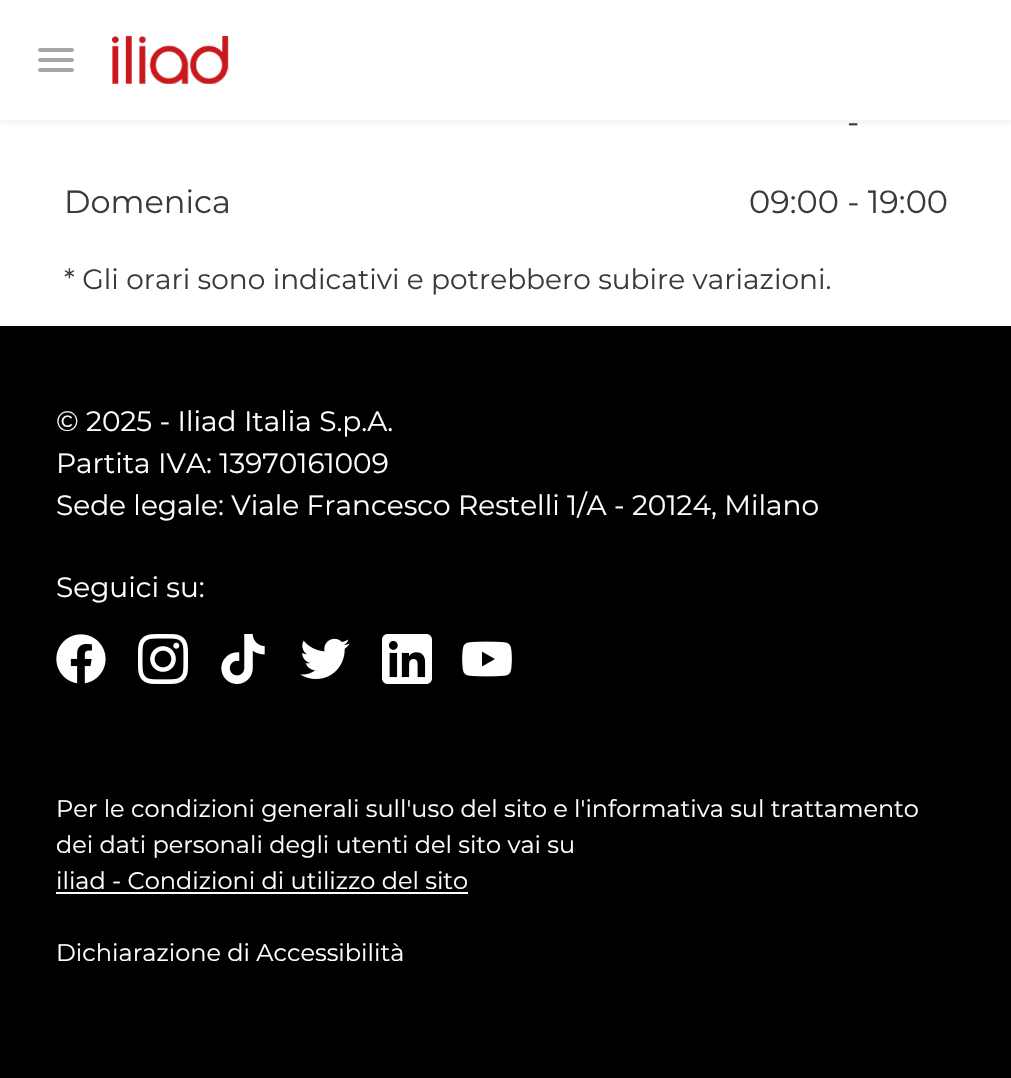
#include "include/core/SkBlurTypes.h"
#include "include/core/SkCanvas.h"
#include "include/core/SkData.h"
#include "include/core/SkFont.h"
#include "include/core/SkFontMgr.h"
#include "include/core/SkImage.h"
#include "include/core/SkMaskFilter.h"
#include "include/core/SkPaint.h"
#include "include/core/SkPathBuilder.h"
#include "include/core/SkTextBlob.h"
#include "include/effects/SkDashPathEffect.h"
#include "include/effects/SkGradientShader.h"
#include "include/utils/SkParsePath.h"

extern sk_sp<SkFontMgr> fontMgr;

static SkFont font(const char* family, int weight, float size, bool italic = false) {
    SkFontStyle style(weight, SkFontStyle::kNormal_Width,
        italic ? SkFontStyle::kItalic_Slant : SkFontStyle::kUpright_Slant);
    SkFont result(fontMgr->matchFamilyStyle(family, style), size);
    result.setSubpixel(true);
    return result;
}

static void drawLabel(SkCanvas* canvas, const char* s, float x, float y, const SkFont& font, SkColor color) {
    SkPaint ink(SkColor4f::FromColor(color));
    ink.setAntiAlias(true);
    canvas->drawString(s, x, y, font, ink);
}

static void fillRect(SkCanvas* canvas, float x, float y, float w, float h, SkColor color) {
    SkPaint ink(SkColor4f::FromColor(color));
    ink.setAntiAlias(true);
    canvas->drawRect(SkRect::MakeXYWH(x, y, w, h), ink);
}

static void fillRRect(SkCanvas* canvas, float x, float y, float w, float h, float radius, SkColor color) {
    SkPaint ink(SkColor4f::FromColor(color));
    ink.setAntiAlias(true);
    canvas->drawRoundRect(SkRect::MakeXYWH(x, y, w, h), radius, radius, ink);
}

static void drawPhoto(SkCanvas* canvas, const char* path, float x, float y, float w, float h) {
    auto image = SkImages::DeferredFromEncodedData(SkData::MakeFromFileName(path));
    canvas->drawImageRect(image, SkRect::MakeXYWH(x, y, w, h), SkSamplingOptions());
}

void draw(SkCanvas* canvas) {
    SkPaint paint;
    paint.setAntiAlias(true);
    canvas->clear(0xFFFFFFFF);
    paint.setColor(0xFFF6F6F6);
    paint.setMaskFilter(SkMaskFilter::MakeBlur(kNormal_SkBlurStyle, 1));
    canvas->drawRect(SkRect::MakeXYWH(0, 4, 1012, 120), paint);
    paint.setMaskFilter(nullptr);
    fillRect(canvas, 0, 3, 1011, 117, 0xFFFFFFFF);
    fillRRect(canvas, 38, 48, 36, 4, 2, 0xFFA6A6A6);
    fillRRect(canvas, 38, 58, 36, 4, 2, 0xFFA6A6A6);
    fillRRect(canvas, 38, 68, 36, 4, 2, 0xFFA6A6A6);
    drawPhoto(canvas, "assets/img1.png", 112, 36, 117, 48);
    SkFont font1 = font("Montserrat", 100, 32);
    drawLabel(canvas, "-", 847, 133, font1, 0xFF3C3A39);
    drawLabel(canvas, "Domenica", 64, 213, font1, 0xFF3C3A39);
    drawLabel(canvas, "09:00 - 19:00", 749, 213, font1, 0xFF3C3A39);
    SkFont font2 = font("Montserrat", 100, 28);
    drawLabel(canvas, "* Gli orari sono indicativi e potrebbero subire variazioni.", 64, 289, font2, 0xFF3C3A39);
    fillRect(canvas, 0, 326, 1011, 752, 0xFF000000);
    drawLabel(canvas, "© 2025 - Iliad Italia S.p.A.", 56, 431, font2, 0xFFFFFFFF);
    drawLabel(canvas, "Partita IVA: 13970161009", 56, 473, font2, 0xFFFFFFFF);
    drawLabel(canvas, "Sede legale: Viale Francesco Restelli 1/A - 20124, Milano", 56, 515, font2, 0xFFFFFFFF);
    drawLabel(canvas, "Seguici su:", 56, 597, font2, 0xFFFFFFFF);
    drawPhoto(canvas, "assets/img2.png", 56, 634, 50, 50);
    drawPhoto(canvas, "assets/img3.png", 138, 634, 50, 50);
    drawPhoto(canvas, "assets/img4.png", 221, 634, 44, 50);
    drawPhoto(canvas, "assets/img5.png", 300, 638, 50, 41);
    drawPhoto(canvas, "assets/img6.png", 382, 634, 50, 50);
    drawPhoto(canvas, "assets/img7.png", 462, 641, 50, 36);
    SkFont font3 = font("Montserrat", 100, 24);
    drawLabel(canvas, "Per le condizioni generali sull'uso del sito e l'informativa sul trattamento", 56, 817, font3, 0xFFFFFFFF);
    drawLabel(canvas, "dei dati personali degli utenti del sito vai su", 56, 853, font3, 0xFFFFFFFF);
    drawLabel(canvas, "iliad - Condizioni di utilizzo del sito", 56, 889, font3, 0xFFFFFFFF);
    fillRect(canvas, 56, 892, 412, 2, 0xFFFFFFFF);
    drawLabel(canvas, "Dichiarazione di Accessibilità", 56, 961, font3, 0xFFFFFFFF);
}
